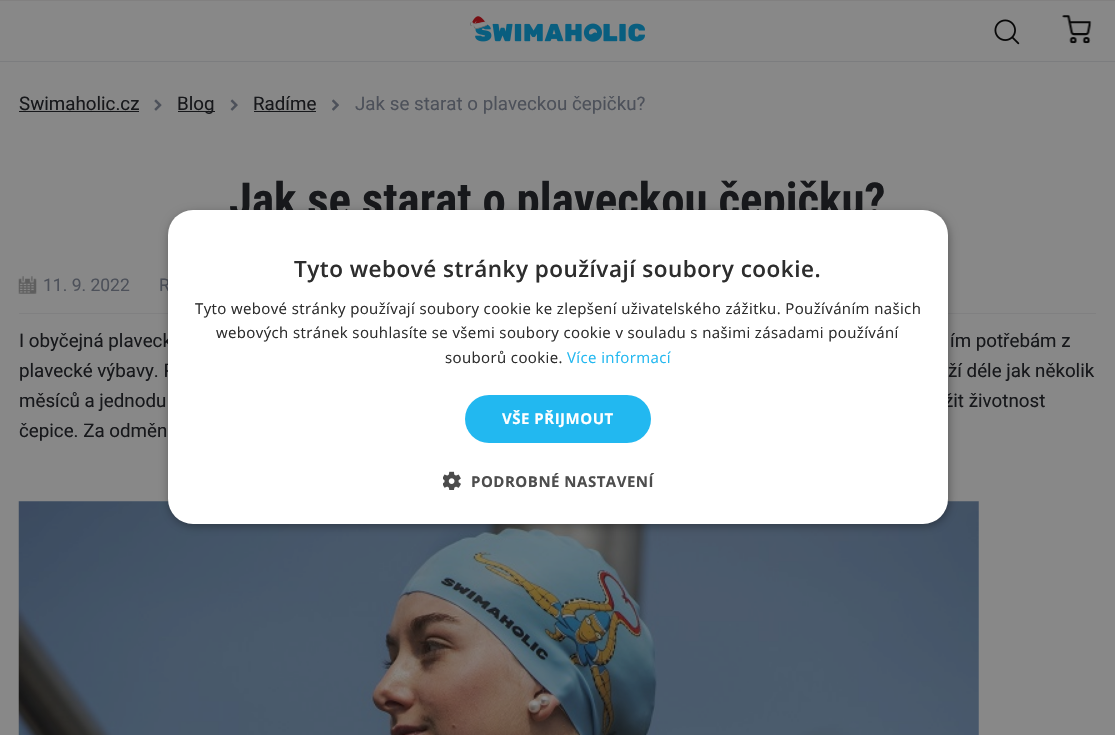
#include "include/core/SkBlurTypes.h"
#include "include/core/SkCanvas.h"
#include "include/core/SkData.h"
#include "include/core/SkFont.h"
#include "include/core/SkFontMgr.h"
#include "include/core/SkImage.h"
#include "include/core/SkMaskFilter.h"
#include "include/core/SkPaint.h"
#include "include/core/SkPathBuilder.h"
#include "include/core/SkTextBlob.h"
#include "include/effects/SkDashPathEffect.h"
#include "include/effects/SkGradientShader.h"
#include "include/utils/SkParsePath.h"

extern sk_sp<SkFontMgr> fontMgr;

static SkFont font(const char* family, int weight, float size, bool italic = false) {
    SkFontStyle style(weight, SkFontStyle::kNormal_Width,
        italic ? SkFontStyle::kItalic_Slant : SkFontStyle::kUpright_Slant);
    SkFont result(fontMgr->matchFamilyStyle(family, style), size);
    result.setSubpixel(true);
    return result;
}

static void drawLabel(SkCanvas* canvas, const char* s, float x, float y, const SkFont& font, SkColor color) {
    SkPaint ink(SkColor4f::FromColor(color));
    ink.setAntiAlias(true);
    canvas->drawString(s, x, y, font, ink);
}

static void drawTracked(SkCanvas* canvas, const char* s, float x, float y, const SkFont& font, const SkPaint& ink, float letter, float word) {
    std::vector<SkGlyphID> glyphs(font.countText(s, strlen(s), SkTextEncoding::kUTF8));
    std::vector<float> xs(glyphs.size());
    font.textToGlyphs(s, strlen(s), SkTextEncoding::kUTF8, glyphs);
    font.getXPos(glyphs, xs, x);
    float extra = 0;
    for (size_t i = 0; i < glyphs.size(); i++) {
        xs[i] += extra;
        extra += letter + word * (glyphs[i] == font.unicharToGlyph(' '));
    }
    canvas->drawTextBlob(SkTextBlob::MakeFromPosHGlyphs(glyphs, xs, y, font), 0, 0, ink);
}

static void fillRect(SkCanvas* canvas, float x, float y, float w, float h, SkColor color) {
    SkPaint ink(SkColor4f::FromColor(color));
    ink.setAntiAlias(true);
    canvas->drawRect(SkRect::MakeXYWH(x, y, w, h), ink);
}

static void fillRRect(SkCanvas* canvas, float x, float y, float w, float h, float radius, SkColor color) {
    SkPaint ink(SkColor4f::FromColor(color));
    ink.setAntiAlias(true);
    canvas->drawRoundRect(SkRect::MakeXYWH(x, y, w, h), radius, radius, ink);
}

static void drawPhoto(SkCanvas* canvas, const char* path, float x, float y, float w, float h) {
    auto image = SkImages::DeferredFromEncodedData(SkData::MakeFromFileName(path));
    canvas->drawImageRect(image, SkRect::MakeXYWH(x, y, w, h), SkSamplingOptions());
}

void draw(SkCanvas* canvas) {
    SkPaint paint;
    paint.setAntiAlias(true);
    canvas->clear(0xFF888888);
    fillRect(canvas, 0, 0, 1115, 1, 0xFF818080);
    fillRect(canvas, 0, 61, 1115, 1, 0xFF7C7D7F);
    drawPhoto(canvas, "assets/img1.png", 470, 16, 175, 26);
    drawPhoto(canvas, "assets/img2.png", 994, 19, 26, 26);
    drawPhoto(canvas, "assets/img3.png", 1062, 15, 30, 29);
    SkFont font1 = font("Roboto", 400, 18.75f);
    drawLabel(canvas, "Swimaholic.cz", 19, 110, font1, 0xFF17181B);
    fillRect(canvas, 19, 111, 120, 1, 0xFF17181B);
    drawPhoto(canvas, "assets/img4.png", 154, 99, 8, 12);
    fillRect(canvas, 178, 111, 37, 1, 0xFF17181B);
    drawLabel(canvas, "Blog", 177, 110, font1, 0xFF17181B);
    drawPhoto(canvas, "assets/img5.png", 230, 99, 8, 12);
    drawLabel(canvas, "Radíme", 253, 110, font1, 0xFF17181B);
    fillRect(canvas, 254, 111, 62, 1, 0xFF17181B);
    drawPhoto(canvas, "assets/img6.png", 332, 99, 7, 12);
    drawLabel(canvas, "Jak se starat o plaveckou čepičku?", 355, 110, font1, 0xFF4D515A);
    SkFont font2 = font("Roboto Condensed", 700, 46.9f);
    drawLabel(canvas, "Jak se starat o plaveckou čepičku?", 229, 216, font2, 0xFF17181B);
    fillRect(canvas, 19, 313, 1077, 1, 0xFF808081);
    drawPhoto(canvas, "assets/img7.png", 18, 276, 19, 18);
    SkFont font3 = font("Roboto", 400, 17.5f);
    drawLabel(canvas, "11. 9. 2022", 43, 291, font3, 0xFF4D515A);
    drawLabel(canvas, "R", 159, 291, font3, 0xFF4D515A);
    drawLabel(canvas, "I obyčejná plaveck", 19, 347, font1, 0xFF17181B);
    drawLabel(canvas, "ím potřebám z", 950, 347, font1, 0xFF17181B);
    drawLabel(canvas, "plavecké výbavy. P", 19, 377, font1, 0xFF17181B);
    drawLabel(canvas, "ží déle jak několik", 948, 377, font1, 0xFF17181B);
    drawLabel(canvas, "měsíců a jednodu", 19, 407, font1, 0xFF17181B);
    drawLabel(canvas, "žit životnost", 944, 407, font1, 0xFF17181B);
    drawLabel(canvas, "čepice. Za odměn", 19, 437, font1, 0xFF17181B);
    drawPhoto(canvas, "assets/img8.png", 18, 501, 961, 234);
    paint.setColor(0x59000000);
    paint.setMaskFilter(SkMaskFilter::MakeBlur(kNormal_SkBlurStyle, 5));
    canvas->drawRoundRect(SkRect::MakeXYWH(169, 213, 780, 313), 25, 25, paint);
    paint.setMaskFilter(nullptr);
    fillRRect(canvas, 168, 210, 780, 314, 25, 0xFFFFFFFF);
    SkFont font4 = font("Open Sans", 600, 22.5f);
    paint.setColor(0xFF2D2D2D);
    drawTracked(canvas, "Tyto webové stránky používají soubory cookie.", 294, 277, font4, paint, 0.5f, 0);
    SkFont font5 = font("Open Sans", 400, 15);
    drawTracked(canvas, "Tyto webové stránky používají soubory cookie ke zlepšení uživatelského zážitku. Používáním našich", 195, 314, font5, paint, 0.38f, 0);
    drawTracked(canvas, "webových stránek souhlasíte se všemi soubory cookie v souladu s našimi zásadami používání", 216, 338, font5, paint, 0.38f, 0);
    drawTracked(canvas, "souborů cookie.", 445, 363, font5, paint, 0.38f, 0);
    paint.setColor(0xFF22B8F0);
    drawTracked(canvas, "Více informací", 567, 363, font5, paint, 0.38f, 0);
    fillRRect(canvas, 465, 395, 186, 48, 24, 0xFF22B8F0);
    SkFont font6 = font("Open Sans", 700, 15);
    paint.setColor(0xFFFFFFFF);
    drawTracked(canvas, "VŠE PŘIJMOUT", 502, 424, font6, paint, 0.5f, 0);
    drawPhoto(canvas, "assets/img9.png", 443, 471, 18, 19);
    paint.setColor(0xFF4D4D4D);
    drawTracked(canvas, "PODROBNÉ NASTAVENÍ", 471, 487, font6, paint, 0.5f, 0);
}
